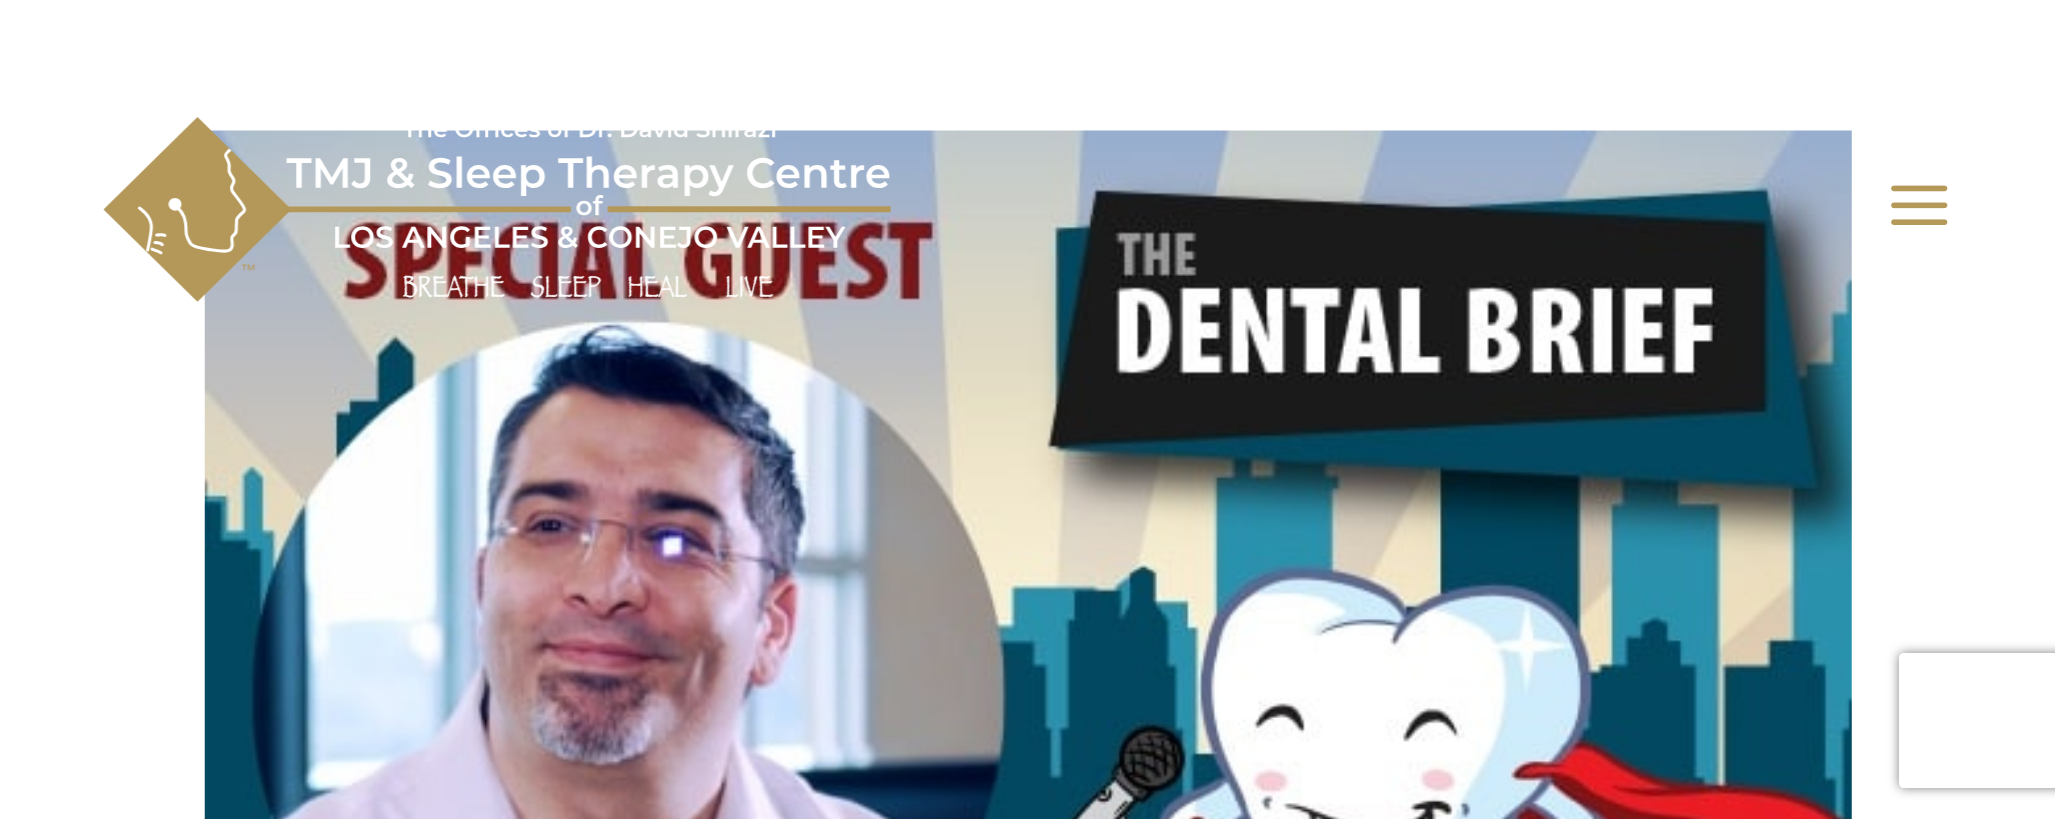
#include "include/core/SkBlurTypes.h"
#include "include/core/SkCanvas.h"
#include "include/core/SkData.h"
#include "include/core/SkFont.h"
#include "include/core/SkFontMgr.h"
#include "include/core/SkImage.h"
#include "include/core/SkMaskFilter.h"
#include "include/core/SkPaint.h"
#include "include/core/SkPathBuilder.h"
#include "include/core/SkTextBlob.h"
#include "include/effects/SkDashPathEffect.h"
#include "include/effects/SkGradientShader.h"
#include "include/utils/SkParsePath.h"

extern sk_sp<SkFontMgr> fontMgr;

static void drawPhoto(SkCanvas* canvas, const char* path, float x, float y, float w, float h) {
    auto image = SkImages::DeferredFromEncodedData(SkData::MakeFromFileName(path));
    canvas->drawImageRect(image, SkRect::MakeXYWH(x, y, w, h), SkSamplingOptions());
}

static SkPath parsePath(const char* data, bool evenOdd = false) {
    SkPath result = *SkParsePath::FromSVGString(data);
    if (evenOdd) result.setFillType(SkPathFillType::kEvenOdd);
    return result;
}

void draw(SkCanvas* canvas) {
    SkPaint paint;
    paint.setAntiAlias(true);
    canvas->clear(0xFFFFFFFF);
    drawPhoto(canvas, "assets/img3.png", 204, 130, 1648, 689);
    drawPhoto(canvas, "assets/img1.png", 103, 117, 788, 185);
    drawPhoto(canvas, "assets/img2.png", 1891, 185, 57, 40);
    canvas->save();
    canvas->clipPath(parsePath("M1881 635H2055V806H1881ZM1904 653H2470C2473 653 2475 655 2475 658V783C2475 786 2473 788 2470 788H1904C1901 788 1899 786 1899 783V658C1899 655 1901 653 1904 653Z", true), true);
    paint.setColor(0xFF808080);
    paint.setMaskFilter(SkMaskFilter::MakeBlur(kNormal_SkBlurStyle, 5.5f));
    canvas->drawRoundRect(SkRect::MakeXYWH(1899, 653, 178, 135), 5, 5, paint);
    paint.setMaskFilter(nullptr);
    canvas->restore();
}
